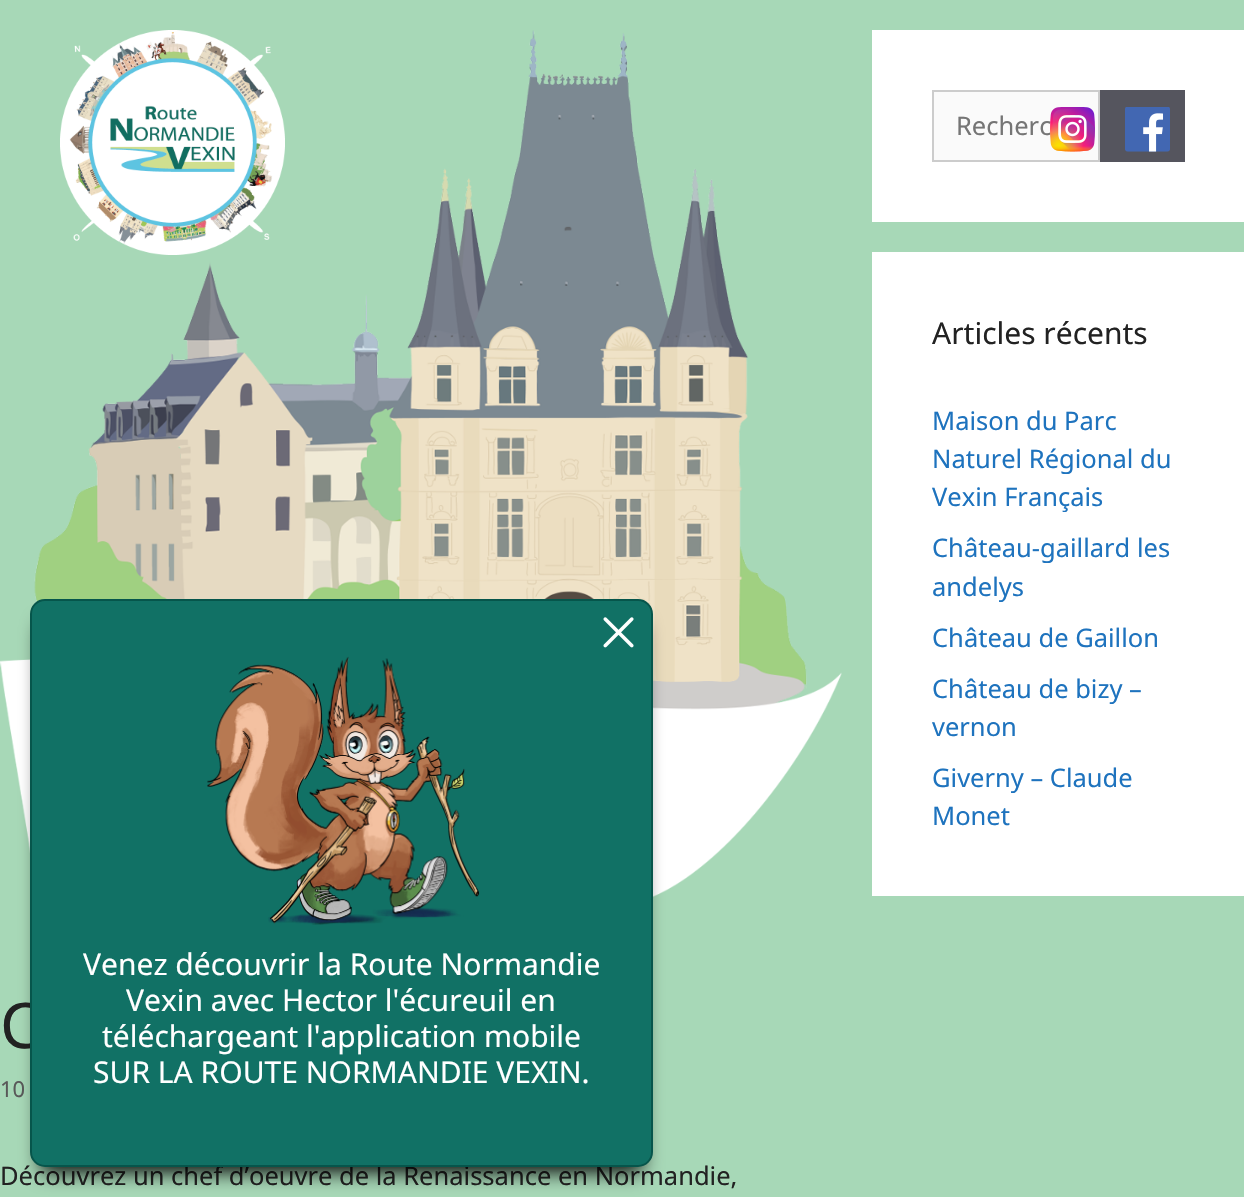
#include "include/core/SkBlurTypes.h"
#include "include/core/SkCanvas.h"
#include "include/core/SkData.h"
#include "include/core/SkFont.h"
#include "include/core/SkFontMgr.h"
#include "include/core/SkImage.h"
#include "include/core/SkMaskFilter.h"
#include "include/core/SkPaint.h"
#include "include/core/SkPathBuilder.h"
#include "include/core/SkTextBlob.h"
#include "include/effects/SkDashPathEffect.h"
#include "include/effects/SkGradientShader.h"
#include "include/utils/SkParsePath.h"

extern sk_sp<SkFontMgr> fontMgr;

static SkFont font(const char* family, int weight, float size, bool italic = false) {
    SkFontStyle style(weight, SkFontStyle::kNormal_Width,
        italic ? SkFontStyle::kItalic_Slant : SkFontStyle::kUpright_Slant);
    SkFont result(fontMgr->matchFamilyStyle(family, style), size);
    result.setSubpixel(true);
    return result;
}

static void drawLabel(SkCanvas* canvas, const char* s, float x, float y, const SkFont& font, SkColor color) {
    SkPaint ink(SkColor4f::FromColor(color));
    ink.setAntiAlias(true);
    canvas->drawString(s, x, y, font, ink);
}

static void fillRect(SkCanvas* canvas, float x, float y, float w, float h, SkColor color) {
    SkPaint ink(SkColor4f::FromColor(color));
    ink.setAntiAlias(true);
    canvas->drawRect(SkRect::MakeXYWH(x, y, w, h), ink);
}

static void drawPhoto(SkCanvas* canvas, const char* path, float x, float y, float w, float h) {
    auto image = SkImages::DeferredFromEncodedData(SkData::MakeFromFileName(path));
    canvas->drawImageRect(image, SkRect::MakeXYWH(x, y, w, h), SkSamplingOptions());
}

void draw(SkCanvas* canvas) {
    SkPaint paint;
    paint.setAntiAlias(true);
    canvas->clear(0xFFA7D8B7);
    drawPhoto(canvas, "assets/img4.png", 0, 30, 842, 867);
    drawPhoto(canvas, "assets/img1.png", 60, 30, 225, 225);
    fillRect(canvas, 872, 30, 372, 192, 0xFFFFFFFF);
    paint.setColor(0xFFFAFAFA);
    canvas->drawRect(SkRect::MakeXYWH(933, 91, 166, 70), paint);
    paint.setStroke(true);
    paint.setStrokeWidth(2);
    paint.setColor(0xFFCCCCCC);
    canvas->drawRect(SkRect::MakeXYWH(933, 91, 166, 70), paint);
    SkFont font1 = font("Noto Sans", 400, 25.5f);
    drawLabel(canvas, "Recherc", 956, 135, font1, 0xFF757575);
    drawPhoto(canvas, "assets/img2.png", 1050, 107, 45, 45);
    fillRect(canvas, 1100, 90, 85, 72, 0xFF55555E);
    drawPhoto(canvas, "assets/img3.png", 1125, 107, 45, 45);
    fillRect(canvas, 872, 252, 372, 644, 0xFFFFFFFF);
    SkFont font2 = font("Noto Sans", 400, 30);
    drawLabel(canvas, "Articles récents", 932, 344, font2, 0xFF222222);
    drawLabel(canvas, "Maison du Parc", 932, 430, font1, 0xFF1E73BE);
    drawLabel(canvas, "Naturel Régional du", 932, 468, font1, 0xFF1E73BE);
    drawLabel(canvas, "Vexin Français", 932, 506, font1, 0xFF1E73BE);
    drawLabel(canvas, "Château-gaillard les", 932, 557, font1, 0xFF1E73BE);
    drawLabel(canvas, "andelys", 932, 596, font1, 0xFF1E73BE);
    drawLabel(canvas, "Château de Gaillon", 932, 647, font1, 0xFF1E73BE);
    drawLabel(canvas, "Château de bizy –", 932, 698, font1, 0xFF1E73BE);
    drawLabel(canvas, "vernon", 932, 736, font1, 0xFF1E73BE);
    drawLabel(canvas, "Giverny – Claude", 932, 787, font1, 0xFF1E73BE);
    drawLabel(canvas, "Monet", 932, 825, font1, 0xFF1E73BE);
    SkFont font3 = font("Noto Sans", 400, 63);
    drawLabel(canvas, "C", 0, 1048, font3, 0xFF222222);
    SkFont font4 = font("Noto Sans", 400, 22);
    drawLabel(canvas, "10", 0, 1097, font4, 0xFF595959);
    drawLabel(canvas, "Découvrez un chef d’oeuvre de la Renaissance en Normandie,", 0, 1185, font1, 0xFF222222);
    paint.setStroke(false);
    paint.setColor(0xFF000000);
    paint.setMaskFilter(SkMaskFilter::MakeBlur(kNormal_SkBlurStyle, 10));
    canvas->drawRoundRect(SkRect::MakeXYWH(41, 624, 601, 548), 5, 5, paint);
    paint.setMaskFilter(nullptr);
    paint.setColor(0xFF117165);
    canvas->drawRoundRect(SkRect::MakeXYWH(31, 600, 621, 566), 14, 14, paint);
    paint.setStroke(true);
    paint.setColor(0xFF06554B);
    canvas->drawRoundRect(SkRect::MakeXYWH(31, 600, 621, 566), 14, 14, paint);
    drawPhoto(canvas, "assets/img5.png", 603, 617, 31, 31);
    drawPhoto(canvas, "assets/img6.png", 207, 656, 273, 269);
    drawLabel(canvas, "Venez découvrir la Route Normandie", 83, 975, font2, 0xFFFFFFFF);
    drawLabel(canvas, "Vexin avec Hector l'écureuil en", 126, 1011, font2, 0xFFFFFFFF);
    drawLabel(canvas, "téléchargeant l'application mobile", 102, 1047, font2, 0xFFFFFFFF);
    drawLabel(canvas, "SUR LA ROUTE NORMANDIE VEXIN.", 93, 1083, font2, 0xFFFFFFFF);
}
